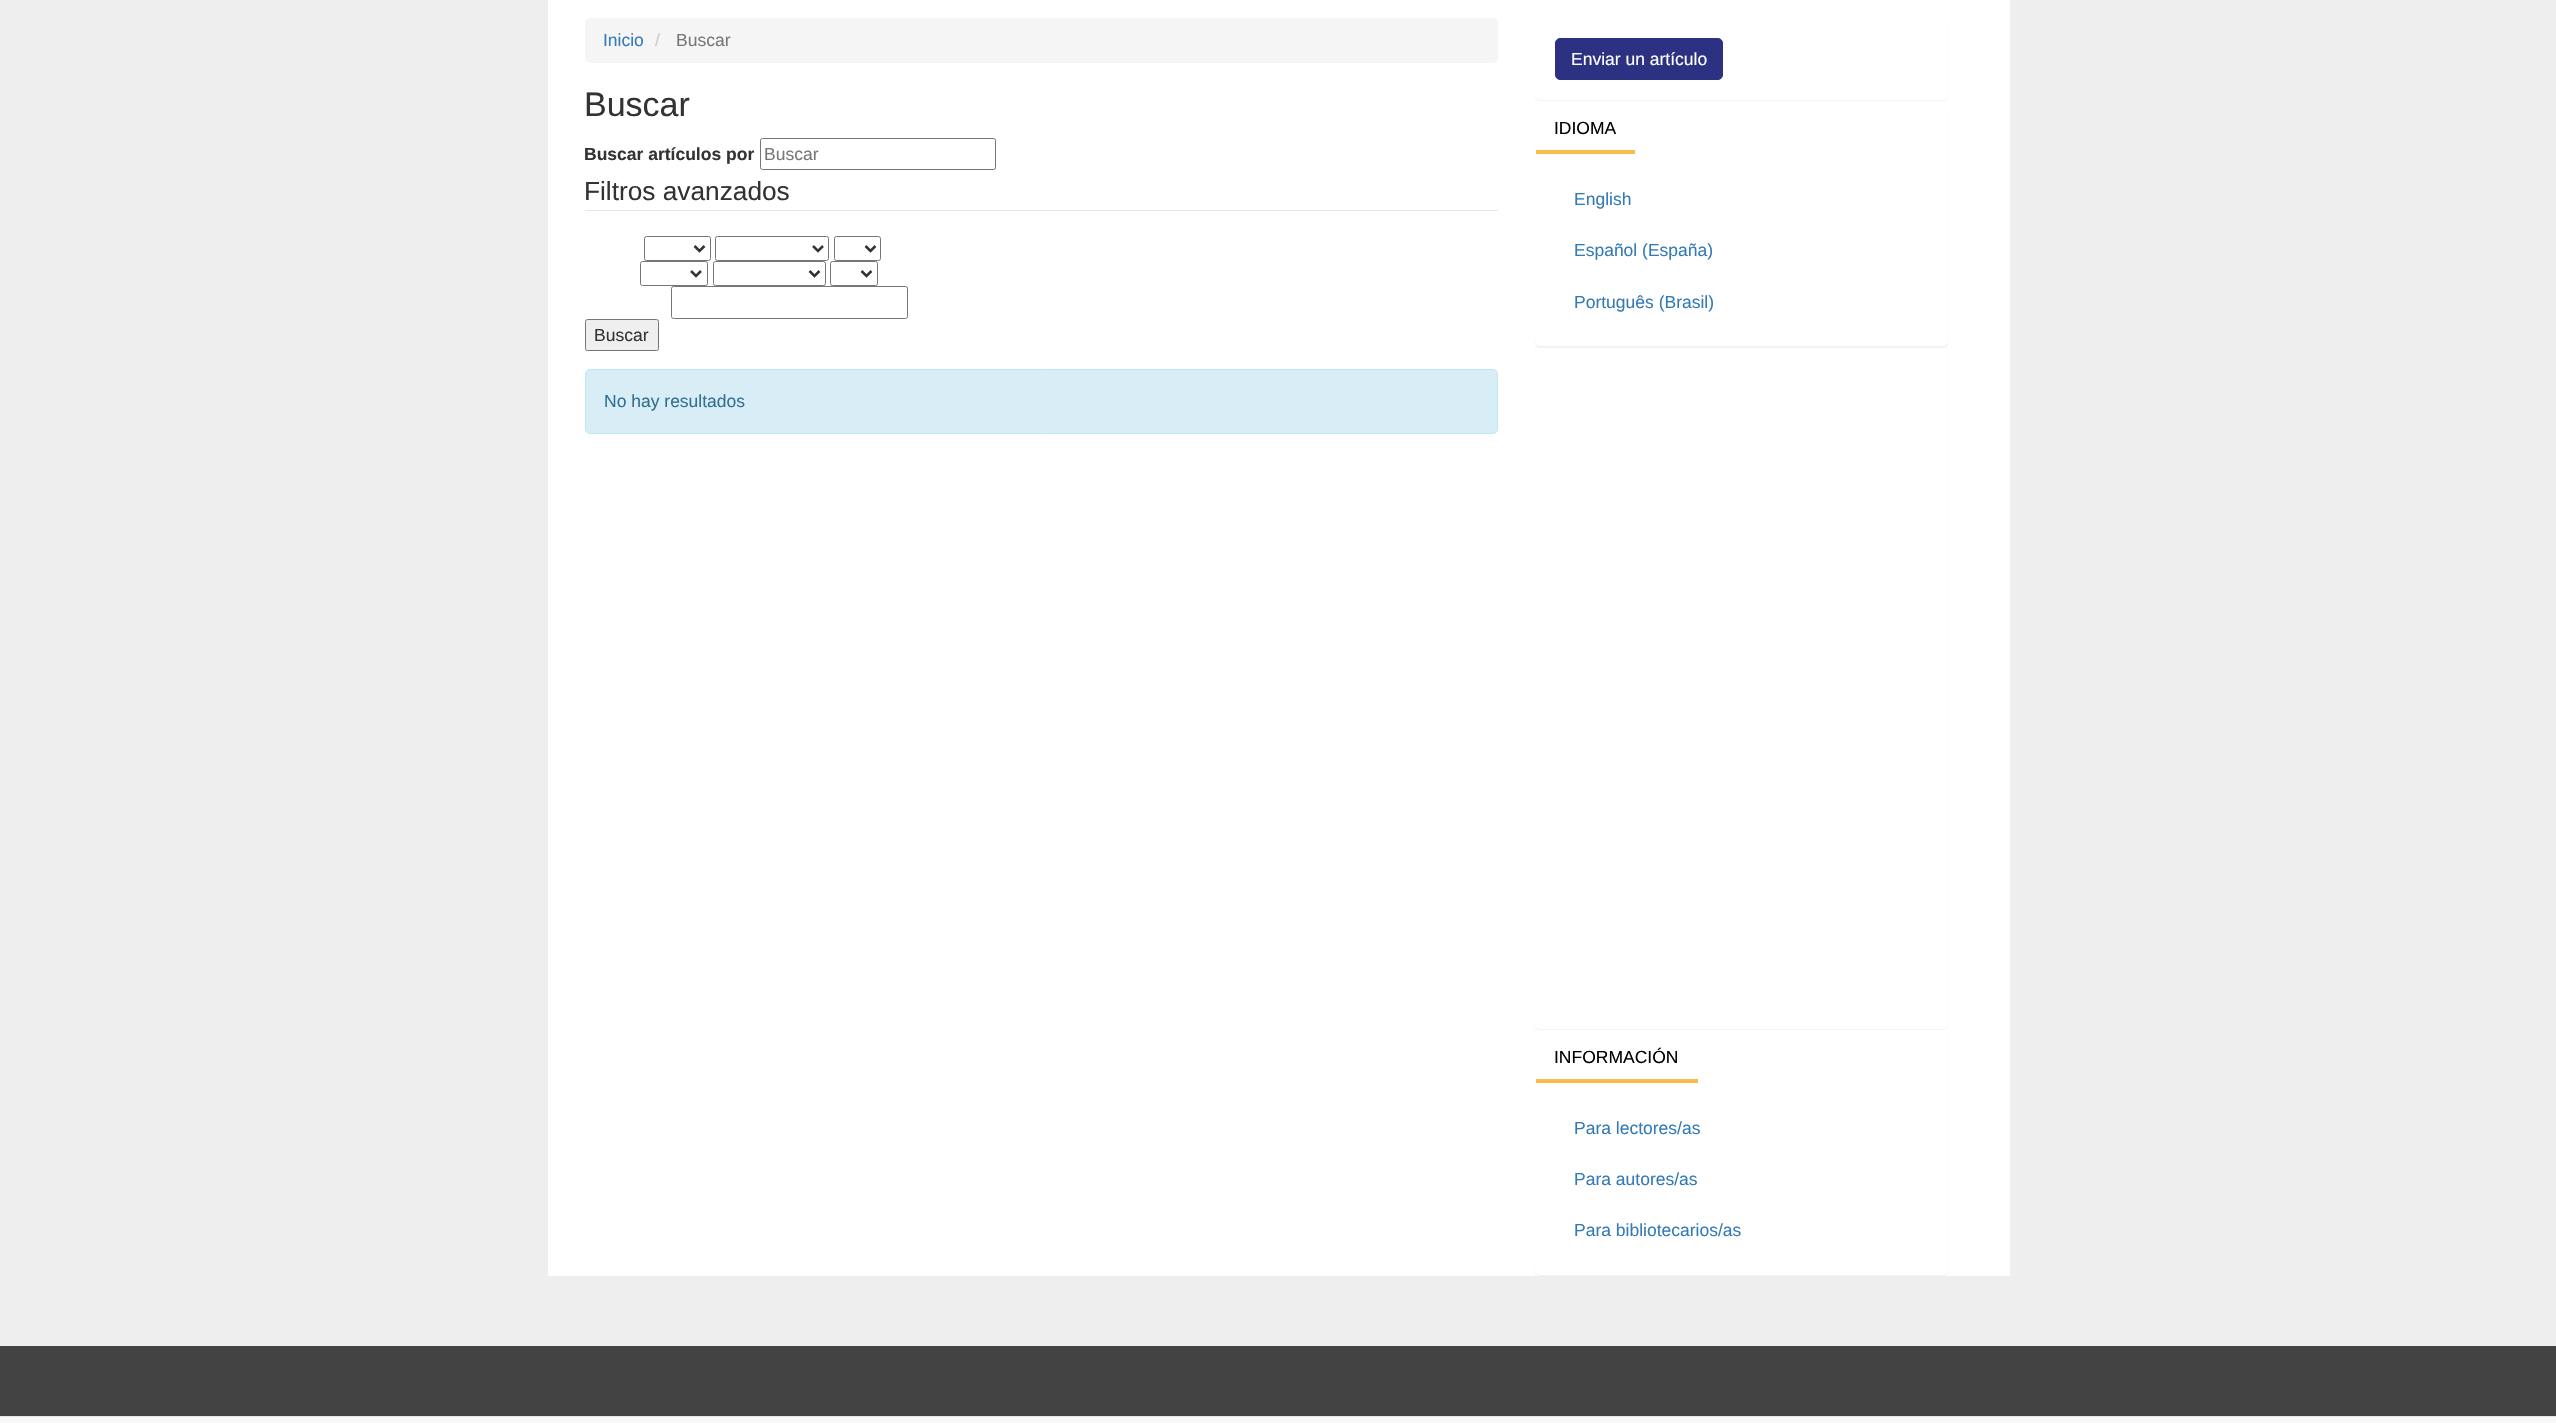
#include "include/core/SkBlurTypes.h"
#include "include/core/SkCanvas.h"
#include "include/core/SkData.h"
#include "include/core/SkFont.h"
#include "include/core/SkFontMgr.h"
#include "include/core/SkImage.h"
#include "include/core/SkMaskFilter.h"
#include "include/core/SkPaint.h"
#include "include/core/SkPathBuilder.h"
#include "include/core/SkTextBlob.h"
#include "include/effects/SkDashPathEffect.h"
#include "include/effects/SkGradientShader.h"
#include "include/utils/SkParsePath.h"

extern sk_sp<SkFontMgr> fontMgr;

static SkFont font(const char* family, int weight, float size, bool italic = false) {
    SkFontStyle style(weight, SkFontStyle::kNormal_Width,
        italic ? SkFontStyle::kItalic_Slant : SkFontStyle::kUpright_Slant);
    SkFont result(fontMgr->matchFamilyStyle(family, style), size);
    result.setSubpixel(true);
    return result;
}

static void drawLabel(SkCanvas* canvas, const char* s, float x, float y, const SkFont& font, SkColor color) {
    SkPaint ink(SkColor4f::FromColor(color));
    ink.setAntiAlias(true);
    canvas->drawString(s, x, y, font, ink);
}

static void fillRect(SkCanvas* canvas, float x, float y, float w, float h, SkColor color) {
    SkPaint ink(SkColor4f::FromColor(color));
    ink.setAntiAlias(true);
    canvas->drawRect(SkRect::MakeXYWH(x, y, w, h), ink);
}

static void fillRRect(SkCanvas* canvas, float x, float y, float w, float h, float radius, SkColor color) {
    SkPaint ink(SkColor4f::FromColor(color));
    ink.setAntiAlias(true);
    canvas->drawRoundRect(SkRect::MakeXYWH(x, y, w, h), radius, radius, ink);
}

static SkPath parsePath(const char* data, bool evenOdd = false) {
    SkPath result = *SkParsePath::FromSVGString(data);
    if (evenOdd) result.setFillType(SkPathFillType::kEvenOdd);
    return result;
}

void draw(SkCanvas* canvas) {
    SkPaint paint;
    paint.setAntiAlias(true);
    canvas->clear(0xFFEEEEEE);
    fillRect(canvas, 548, 0, 1462, 1276, 0xFFFFFFFF);
    fillRRect(canvas, 585, 18, 913, 45, 5, 0xFFF5F5F5);
    SkFont font1 = font("Liberation Sans", 400, 17.5f);
    drawLabel(canvas, "Inicio", 603, 46, font1, 0xFF337AB7);
    drawLabel(canvas, "/", 655, 46, font1, 0xFFCCCCCC);
    drawLabel(canvas, "Buscar", 676, 46, font1, 0xFF777777);
    SkFont font2 = font("Liberation Sans", 400, 34);
    drawLabel(canvas, "Buscar", 584, 116, font2, 0xFF333333);
    SkFont font3 = font("Liberation Sans", 700, 17.5f);
    drawLabel(canvas, "Buscar artículos por", 584, 160, font3, 0xFF333333);
    paint.setStroke(true);
    paint.setStrokeWidth(1);
    paint.setColor(0xFF767676);
    canvas->drawRoundRect(SkRect::MakeXYWH(760.5f, 138.5f, 235, 31), 2, 2, paint);
    drawLabel(canvas, "Buscar", 764, 160, font1, 0xFF777777);
    fillRect(canvas, 585, 210, 913, 1, 0xFFE5E5E5);
    SkFont font4 = font("Liberation Sans", 400, 26.25f);
    drawLabel(canvas, "Filtros avanzados", 584, 200, font4, 0xFF333333);
    canvas->drawRoundRect(SkRect::MakeXYWH(644.5f, 236.5f, 66, 24), 2, 2, paint);
    paint.setStrokeWidth(2.5f);
    paint.setColor(0xFF333333);
    canvas->drawPath(parsePath("M694.5 246L699.5 251L704.5 246"), paint);
    paint.setStrokeWidth(1);
    paint.setColor(0xFF767676);
    canvas->drawRoundRect(SkRect::MakeXYWH(715.5f, 236.5f, 113, 24), 2, 2, paint);
    paint.setStrokeWidth(2.5f);
    paint.setColor(0xFF333333);
    canvas->drawPath(parsePath("M813 246L818 251L823 246"), paint);
    paint.setStrokeWidth(1);
    paint.setColor(0xFF767676);
    canvas->drawRoundRect(SkRect::MakeXYWH(834.5f, 236.5f, 46, 24), 2, 2, paint);
    paint.setStrokeWidth(2.5f);
    paint.setColor(0xFF333333);
    canvas->drawPath(parsePath("M865.5 246L870.5 251L875.5 246"), paint);
    paint.setStrokeWidth(1);
    paint.setColor(0xFF767676);
    canvas->drawRoundRect(SkRect::MakeXYWH(640.5f, 261.5f, 67, 24), 2, 2, paint);
    paint.setStrokeWidth(2.5f);
    paint.setColor(0xFF333333);
    canvas->drawPath(parsePath("M691 271L696 276L701 271"), paint);
    paint.setStrokeWidth(1);
    paint.setColor(0xFF767676);
    canvas->drawRoundRect(SkRect::MakeXYWH(713.5f, 261.5f, 112, 24), 2, 2, paint);
    paint.setStrokeWidth(2.5f);
    paint.setColor(0xFF333333);
    canvas->drawPath(parsePath("M809.5 271L814.5 276L819.5 271"), paint);
    paint.setStrokeWidth(1);
    paint.setColor(0xFF767676);
    canvas->drawRoundRect(SkRect::MakeXYWH(830.5f, 261.5f, 47, 24), 2, 2, paint);
    paint.setStrokeWidth(2.5f);
    paint.setColor(0xFF333333);
    canvas->drawPath(parsePath("M861.5 271L866.5 276L871.5 271"), paint);
    paint.setStrokeWidth(1);
    paint.setColor(0xFF767676);
    canvas->drawRoundRect(SkRect::MakeXYWH(671.5f, 286.5f, 236, 32), 2, 2, paint);
    paint.setStroke(false);
    paint.setColor(0xFFEFEFEF);
    canvas->drawRoundRect(SkRect::MakeXYWH(585.5f, 319.5f, 73, 31), 2, 2, paint);
    paint.setStroke(true);
    paint.setColor(0xFF767676);
    canvas->drawRoundRect(SkRect::MakeXYWH(585.5f, 319.5f, 73, 31), 2, 2, paint);
    drawLabel(canvas, "Buscar", 594, 341, font1, 0xFF333333);
    paint.setStroke(false);
    paint.setColor(0xFFD9EDF7);
    canvas->drawRoundRect(SkRect::MakeXYWH(585.5f, 369.5f, 912, 64), 4.5f, 4.5f, paint);
    paint.setStroke(true);
    paint.setColor(0xFFBCE8F1);
    canvas->drawRoundRect(SkRect::MakeXYWH(585.5f, 369.5f, 912, 64), 4.5f, 4.5f, paint);
    drawLabel(canvas, "No hay resultados", 604, 407, font1, 0xFF31708F);
    paint.setStroke(false);
    paint.setColor(0x0D000000);
    paint.setMaskFilter(SkMaskFilter::MakeBlur(kNormal_SkBlurStyle, 0.5f));
    canvas->drawRoundRect(SkRect::MakeXYWH(1535, 19, 413, 82), 5, 5, paint);
    paint.setMaskFilter(nullptr);
    paint.setColor(0xFFFFFFFF);
    canvas->drawRoundRect(SkRect::MakeXYWH(1535.5f, 18.5f, 412, 81), 4.5f, 4.5f, paint);
    paint.setStroke(true);
    canvas->drawRoundRect(SkRect::MakeXYWH(1535.5f, 18.5f, 412, 81), 4.5f, 4.5f, paint);
    paint.setStroke(false);
    paint.setColor(0xFF2C3181);
    canvas->drawRoundRect(SkRect::MakeXYWH(1555.5f, 38.5f, 167, 41), 4.5f, 4.5f, paint);
    paint.setStroke(true);
    canvas->drawRoundRect(SkRect::MakeXYWH(1555.5f, 38.5f, 167, 41), 4.5f, 4.5f, paint);
    drawLabel(canvas, "Enviar un artículo", 1571, 65, font1, 0xFFFFFFFF);
    paint.setStroke(false);
    paint.setColor(0x0D000000);
    paint.setMaskFilter(SkMaskFilter::MakeBlur(kNormal_SkBlurStyle, 0.5f));
    canvas->drawRoundRect(SkRect::MakeXYWH(1535, 103, 413, 245), 5, 5, paint);
    paint.setMaskFilter(nullptr);
    paint.setColor(0xFFFFFFFF);
    canvas->drawRoundRect(SkRect::MakeXYWH(1535.5f, 101.5f, 412, 244), 4.5f, 4.5f, paint);
    paint.setStroke(true);
    canvas->drawRoundRect(SkRect::MakeXYWH(1535.5f, 101.5f, 412, 244), 4.5f, 4.5f, paint);
    fillRect(canvas, 1536, 150, 99, 4, 0xFFF7BC4A);
    drawLabel(canvas, "IDIOMA", 1554, 134, font1, 0xFF000000);
    drawLabel(canvas, "English", 1574, 205, font1, 0xFF337AB7);
    drawLabel(canvas, "Español (España)", 1574, 256, font1, 0xFF337AB7);
    drawLabel(canvas, "Português (Brasil)", 1574, 308, font1, 0xFF337AB7);
    paint.setStroke(false);
    paint.setColor(0x0D000000);
    paint.setMaskFilter(SkMaskFilter::MakeBlur(kNormal_SkBlurStyle, 0.5f));
    canvas->drawRoundRect(SkRect::MakeXYWH(1535, 349, 413, 681), 5, 5, paint);
    paint.setMaskFilter(nullptr);
    paint.setColor(0xFFFFFFFF);
    canvas->drawRoundRect(SkRect::MakeXYWH(1535.5f, 348.5f, 412, 680), 4.5f, 4.5f, paint);
    paint.setStroke(true);
    canvas->drawRoundRect(SkRect::MakeXYWH(1535.5f, 348.5f, 412, 680), 4.5f, 4.5f, paint);
    paint.setStroke(false);
    paint.setColor(0x0D000000);
    paint.setMaskFilter(SkMaskFilter::MakeBlur(kNormal_SkBlurStyle, 0.5f));
    canvas->drawRoundRect(SkRect::MakeXYWH(1535, 1031, 413, 245), 5, 5, paint);
    paint.setMaskFilter(nullptr);
    paint.setColor(0xFFFFFFFF);
    canvas->drawRoundRect(SkRect::MakeXYWH(1535.5f, 1030.5f, 412, 244), 4.5f, 4.5f, paint);
    paint.setStroke(true);
    canvas->drawRoundRect(SkRect::MakeXYWH(1535.5f, 1030.5f, 412, 244), 4.5f, 4.5f, paint);
    fillRect(canvas, 1536, 1079, 162, 4, 0xFFF7BC4A);
    drawLabel(canvas, "INFORMACIÓN", 1554, 1063, font1, 0xFF000000);
    drawLabel(canvas, "Para lectores/as", 1574, 1134, font1, 0xFF337AB7);
    drawLabel(canvas, "Para autores/as", 1574, 1185, font1, 0xFF337AB7);
    drawLabel(canvas, "Para bibliotecarios/as", 1574, 1236, font1, 0xFF337AB7);
    fillRect(canvas, 0, 1346, 2556, 70, 0xFF434343);
    fillRect(canvas, 0, 1417, 2556, 6, 0xFFF8F8F8);
    fillRect(canvas, 0, 1416, 2556, 1, 0xFFE7E7E7);
}
